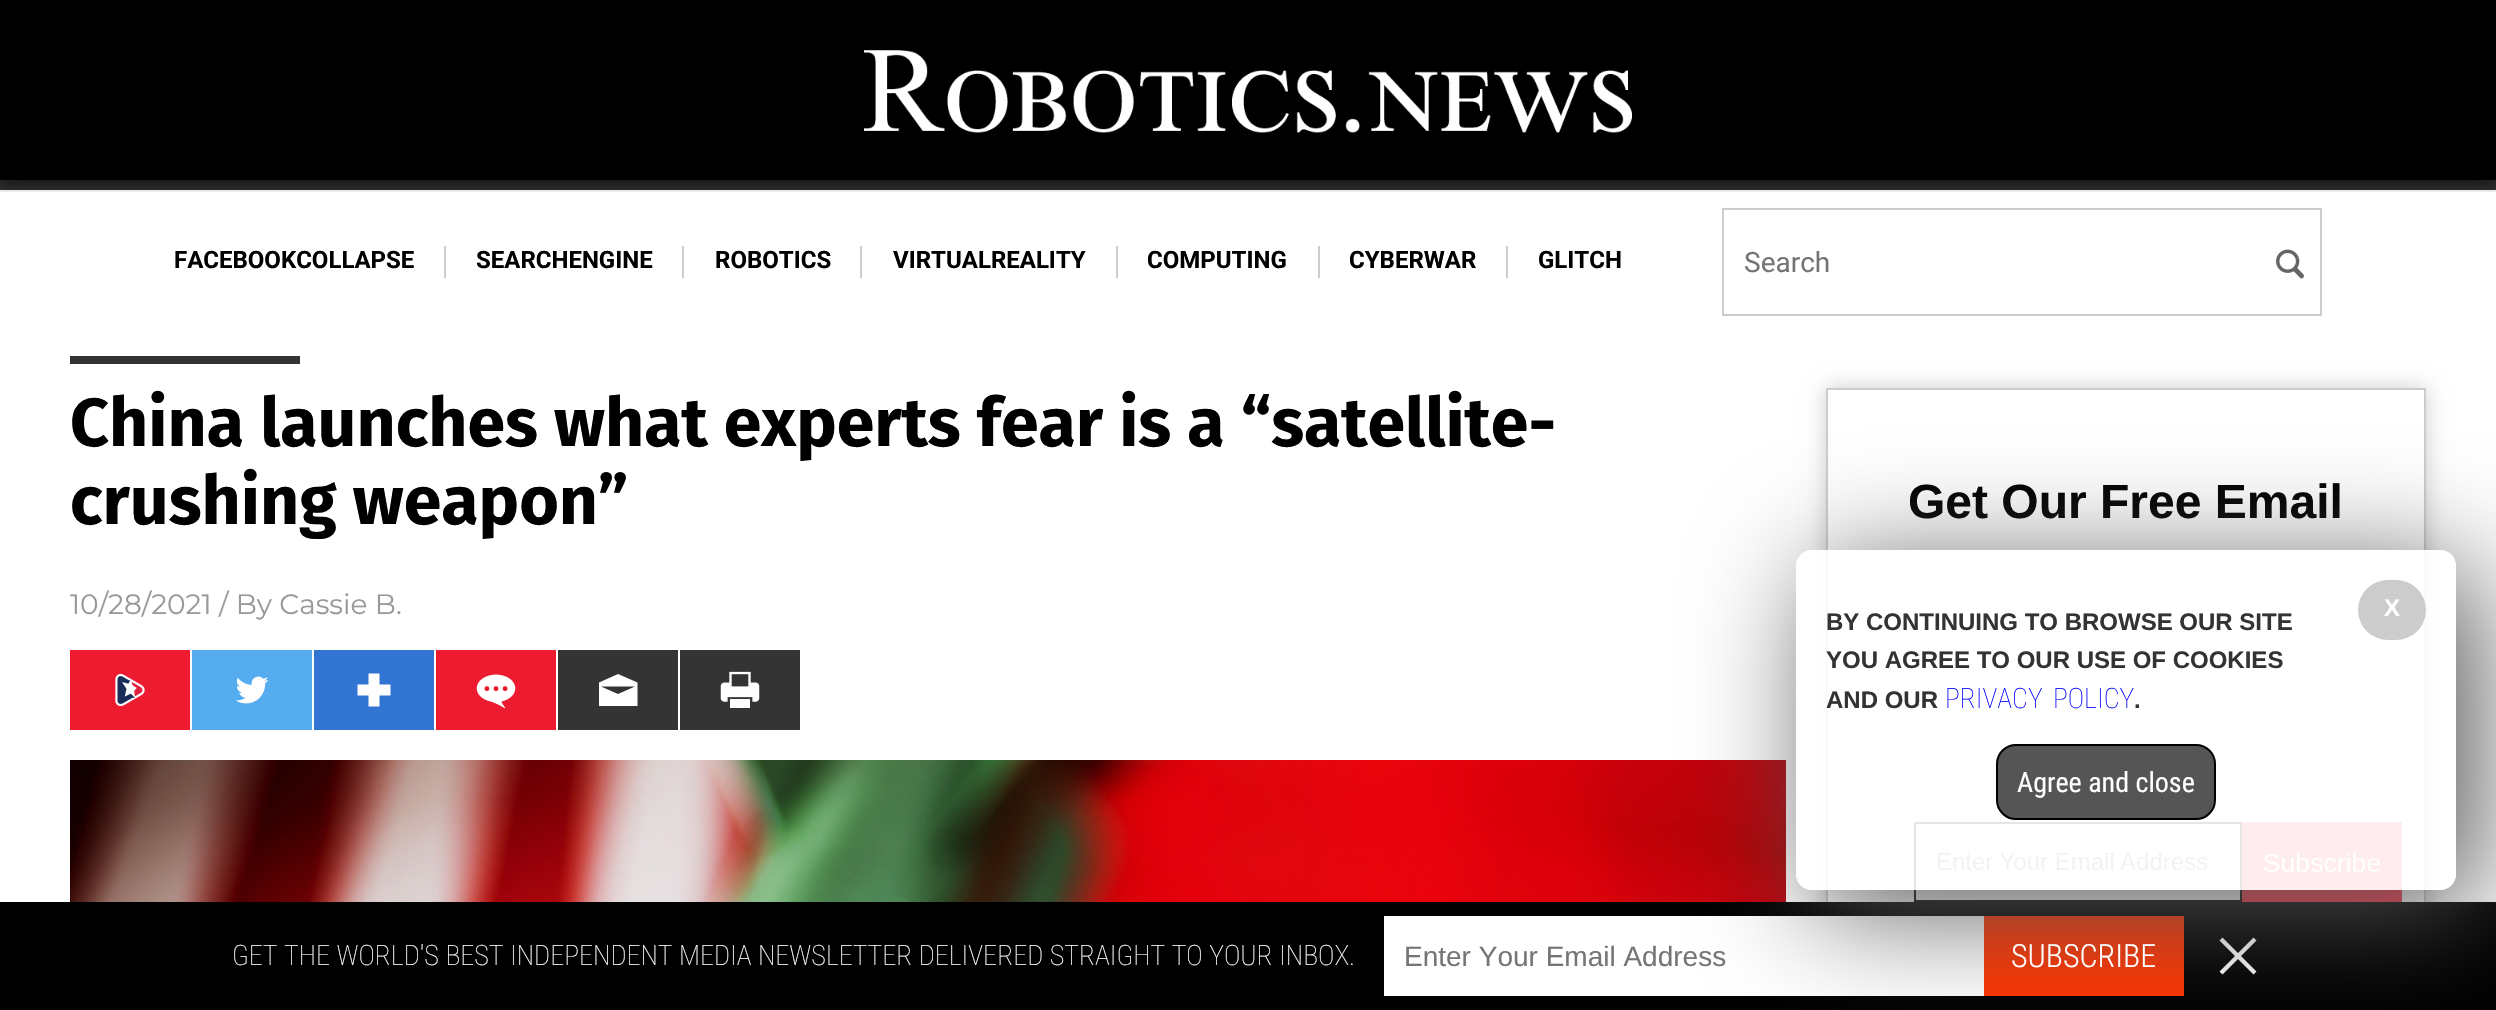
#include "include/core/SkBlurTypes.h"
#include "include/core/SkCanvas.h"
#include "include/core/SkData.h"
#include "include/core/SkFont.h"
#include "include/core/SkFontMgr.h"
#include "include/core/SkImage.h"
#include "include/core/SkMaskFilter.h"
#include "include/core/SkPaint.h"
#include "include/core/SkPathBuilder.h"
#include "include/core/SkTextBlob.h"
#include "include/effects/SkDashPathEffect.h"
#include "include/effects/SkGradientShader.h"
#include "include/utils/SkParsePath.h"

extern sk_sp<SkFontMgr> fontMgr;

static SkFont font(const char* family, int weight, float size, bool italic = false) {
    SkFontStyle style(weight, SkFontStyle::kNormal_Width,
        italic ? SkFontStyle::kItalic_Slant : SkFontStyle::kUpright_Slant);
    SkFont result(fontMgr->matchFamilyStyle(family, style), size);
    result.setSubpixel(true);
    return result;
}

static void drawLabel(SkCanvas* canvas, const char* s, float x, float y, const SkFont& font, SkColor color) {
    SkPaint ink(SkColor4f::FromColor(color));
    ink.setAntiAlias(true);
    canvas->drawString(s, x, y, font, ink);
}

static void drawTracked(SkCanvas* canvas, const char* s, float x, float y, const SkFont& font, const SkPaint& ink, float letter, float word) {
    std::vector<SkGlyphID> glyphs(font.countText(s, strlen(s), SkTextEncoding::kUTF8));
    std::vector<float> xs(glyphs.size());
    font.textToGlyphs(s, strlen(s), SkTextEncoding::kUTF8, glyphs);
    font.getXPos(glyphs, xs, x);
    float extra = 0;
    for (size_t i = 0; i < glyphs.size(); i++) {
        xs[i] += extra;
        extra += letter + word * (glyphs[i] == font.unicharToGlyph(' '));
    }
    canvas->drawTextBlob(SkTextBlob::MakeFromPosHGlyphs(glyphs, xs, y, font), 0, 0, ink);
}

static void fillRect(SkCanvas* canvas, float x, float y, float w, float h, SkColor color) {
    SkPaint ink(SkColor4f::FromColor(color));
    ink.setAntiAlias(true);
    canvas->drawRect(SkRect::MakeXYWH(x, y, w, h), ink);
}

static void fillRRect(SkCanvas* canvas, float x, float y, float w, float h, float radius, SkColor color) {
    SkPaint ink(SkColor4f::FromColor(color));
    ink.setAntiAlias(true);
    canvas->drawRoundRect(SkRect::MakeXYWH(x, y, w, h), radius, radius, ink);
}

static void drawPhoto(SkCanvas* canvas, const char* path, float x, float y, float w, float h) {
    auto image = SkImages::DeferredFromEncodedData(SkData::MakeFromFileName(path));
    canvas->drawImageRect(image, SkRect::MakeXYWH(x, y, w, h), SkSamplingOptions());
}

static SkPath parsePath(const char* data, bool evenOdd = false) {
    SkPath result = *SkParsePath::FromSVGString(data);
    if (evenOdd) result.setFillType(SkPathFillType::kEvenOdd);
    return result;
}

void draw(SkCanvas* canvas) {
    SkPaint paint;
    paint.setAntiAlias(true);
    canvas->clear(0xFF343434);
    paint.setColor(0xBF000000);
    paint.setMaskFilter(SkMaskFilter::MakeBlur(kNormal_SkBlurStyle, 10));
    canvas->drawRect(SkRect::MakeXYWH(-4, -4, 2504, 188), paint);
    paint.setMaskFilter(nullptr);
    fillRect(canvas, 0, 0, 2496, 180, 0xFF000000);
    drawPhoto(canvas, "assets/img1.png", 864, 50, 768, 83);
    fillRect(canvas, 0, 192, 2496, 710, 0xFFFFFFFF);
    fillRect(canvas, 0, 190, 2496, 2, 0xFFECECEC);
    fillRect(canvas, 444, 246, 2, 32, 0xFFCCCCCC);
    SkFont font1 = font("Roboto", 700, 24);
    drawLabel(canvas, "FACEBOOKCOLLAPSE", 174, 268, font1, 0xFF000000);
    fillRect(canvas, 682, 246, 2, 32, 0xFFCCCCCC);
    drawLabel(canvas, "SEARCHENGINE", 476, 268, font1, 0xFF000000);
    fillRect(canvas, 860, 246, 2, 32, 0xFFCCCCCC);
    drawLabel(canvas, "ROBOTICS", 715, 268, font1, 0xFF000000);
    fillRect(canvas, 1116, 246, 2, 32, 0xFFCCCCCC);
    drawLabel(canvas, "VIRTUALREALITY", 893, 268, font1, 0xFF000000);
    fillRect(canvas, 1318, 246, 2, 32, 0xFFCCCCCC);
    drawLabel(canvas, "COMPUTING", 1147, 268, font1, 0xFF000000);
    fillRect(canvas, 1506, 246, 2, 32, 0xFFCCCCCC);
    drawLabel(canvas, "CYBERWAR", 1349, 268, font1, 0xFF000000);
    drawLabel(canvas, "GLITCH", 1538, 268, font1, 0xFF000000);
    paint.setStroke(true);
    paint.setStrokeWidth(2);
    paint.setColor(0xFFCCCCCC);
    canvas->drawRect(SkRect::MakeXYWH(1723, 209, 598, 106), paint);
    SkFont font2 = font("Roboto", 400, 28);
    drawLabel(canvas, "Search", 1744, 272, font2, 0xFF757575);
    drawPhoto(canvas, "assets/img2.png", 2276, 249, 28, 30);
    fillRect(canvas, 70, 356, 230, 8, 0xFF333333);
    SkFont font3 = font("Fira Sans", 700, 68);
    drawLabel(canvas, "China launches what experts fear is a “satellite-", 70, 446, font3, 0xFF000000);
    drawLabel(canvas, "crushing weapon”", 70, 524, font3, 0xFF000000);
    SkFont font4 = font("Montserrat", 400, 28);
    drawLabel(canvas, "10/28/2021 / By Cassie B.", 70, 614, font4, 0xFF999999);
    fillRect(canvas, 70, 650, 120, 80, 0xFFED1B2F);
    drawPhoto(canvas, "assets/img3.png", 115, 673, 30, 34);
    fillRect(canvas, 192, 650, 120, 80, 0xFF55ACEF);
    drawPhoto(canvas, "assets/img4.png", 235, 676, 34, 28);
    fillRect(canvas, 314, 650, 120, 80, 0xFF3274D1);
    paint.setStroke(false);
    paint.setColor(0xFFFFFFFF);
    canvas->drawPath(parsePath("M390.5 684.5H379.5V673.5H368.5V684.5H357.5V695.5H368.5V706.5H379.5V695.5H390.5Z"), paint);
    fillRect(canvas, 436, 650, 120, 80, 0xFFED1B2F);
    drawPhoto(canvas, "assets/img5.png", 476, 674, 40, 35);
    fillRect(canvas, 558, 650, 120, 80, 0xFF343434);
    canvas->drawPath(parsePath("M618 674L599 682.5V706H637.5V682.5ZM618 694L601 686.5H635Z"), paint);
    fillRect(canvas, 680, 650, 120, 80, 0xFF343434);
    drawPhoto(canvas, "assets/img6.png", 720, 671, 40, 37);
    drawPhoto(canvas, "assets/img7.png", 70, 760, 1716, 142);
    canvas->save();
    canvas->clipPath(parsePath("M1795 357H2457V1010H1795ZM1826 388H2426V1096H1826Z", true), true);
    paint.setColor(0xFFCCCCCC);
    paint.setMaskFilter(SkMaskFilter::MakeBlur(kNormal_SkBlurStyle, 10));
    canvas->drawRect(SkRect::MakeXYWH(1826, 388, 600, 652), paint);
    paint.setMaskFilter(nullptr);
    canvas->restore();
    paint.setStroke(true);
    canvas->drawRect(SkRect::MakeXYWH(1827, 389, 598, 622), paint);
    SkFont font5 = font("Liberation Sans", 700, 48);
    drawLabel(canvas, "Get Our Free Email", 1908, 518, font5, 0xFF000000);
    drawPhoto(canvas, "assets/img8.png", 1914, 822, 488, 80);
    fillRect(canvas, 0, 902, 2496, 108, 0xFF000000);
    fillRect(canvas, 1384, 916, 600, 80, 0xFFFFFFFF);
    fillRect(canvas, 1984, 916, 200, 80, 0xFFFF3300);
    paint.setStroke(false);
    paint.setColor(0xFFFFFFFF);
    canvas->drawPath(parsePath("M2256.5 940.5L2253.5 937.5L2238 953L2222.5 937.5L2219.5 940.5L2235 956L2219.5 971.5L2222.5 974.5L2238 959L2253.5 974.5L2256.5 971.5L2241 956Z"), paint);
    canvas->save();
    canvas->clipPath(parsePath("M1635 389H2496V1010H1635ZM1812 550H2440C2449 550 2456 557 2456 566V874C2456 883 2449 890 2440 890H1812C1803 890 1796 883 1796 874V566C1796 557 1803 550 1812 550Z", true), true);
    paint.setColor(0xFF555555);
    paint.setMaskFilter(SkMaskFilter::MakeBlur(kNormal_SkBlurStyle, 60));
    canvas->drawRoundRect(SkRect::MakeXYWH(1816, 570, 660, 340), 16, 16, paint);
    paint.setMaskFilter(nullptr);
    canvas->restore();
    fillRRect(canvas, 1796, 550, 660, 340, 16, 0xE6FFFFFF);
    fillRRect(canvas, 2358, 580, 68, 60, 30, 0xFFCCCCCC);
    SkFont font6 = font("Liberation Sans", 700, 24);
    drawLabel(canvas, "X", 2384, 616, font6, 0xFFFFFFFF);
    drawLabel(canvas, "BY CONTINUING TO BROWSE OUR SITE", 1826, 630, font6, 0xFF333333);
    drawLabel(canvas, "YOU AGREE TO OUR USE OF COOKIES", 1826, 668, font6, 0xFF333333);
    drawLabel(canvas, "AND OUR", 1826, 708, font6, 0xFF333333);
    SkFont font7 = font("Roboto Condensed", 100, 28);
    paint.setColor(0xFF0000FF);
    drawTracked(canvas, "PRIVACY POLICY", 1945, 708, font7, paint, 0, 4);
    drawLabel(canvas, ".", 2134, 708, font6, 0xFF333333);
    paint.setColor(0xFF555555);
    canvas->drawRoundRect(SkRect::MakeXYWH(1997, 745, 218, 74), 19, 19, paint);
    paint.setStroke(true);
    paint.setColor(0xFF000000);
    canvas->drawRoundRect(SkRect::MakeXYWH(1997, 745, 218, 74), 19, 19, paint);
    SkFont font8 = font("Roboto Condensed", 400, 28);
    drawLabel(canvas, "Agree and close", 2017, 792, font8, 0xFFFFFFFF);
    paint.setStroke(false);
    paint.setColor(0xFFFFFFFF);
    drawTracked(canvas, "GET THE WORLD'S BEST INDEPENDENT MEDIA NEWSLETTER DELIVERED STRAIGHT TO YOUR INBOX.", 232, 965, font7, paint, 0, 0.25f);
    SkFont font9 = font("Liberation Sans", 400, 28);
    drawLabel(canvas, "Enter Your Email Address", 1404, 966, font9, 0xFF757575);
    SkFont font10 = font("Roboto Condensed", 300, 32);
    drawLabel(canvas, "SUBSCRIBE", 2011, 967, font10, 0xFFFFFFFF);
}
